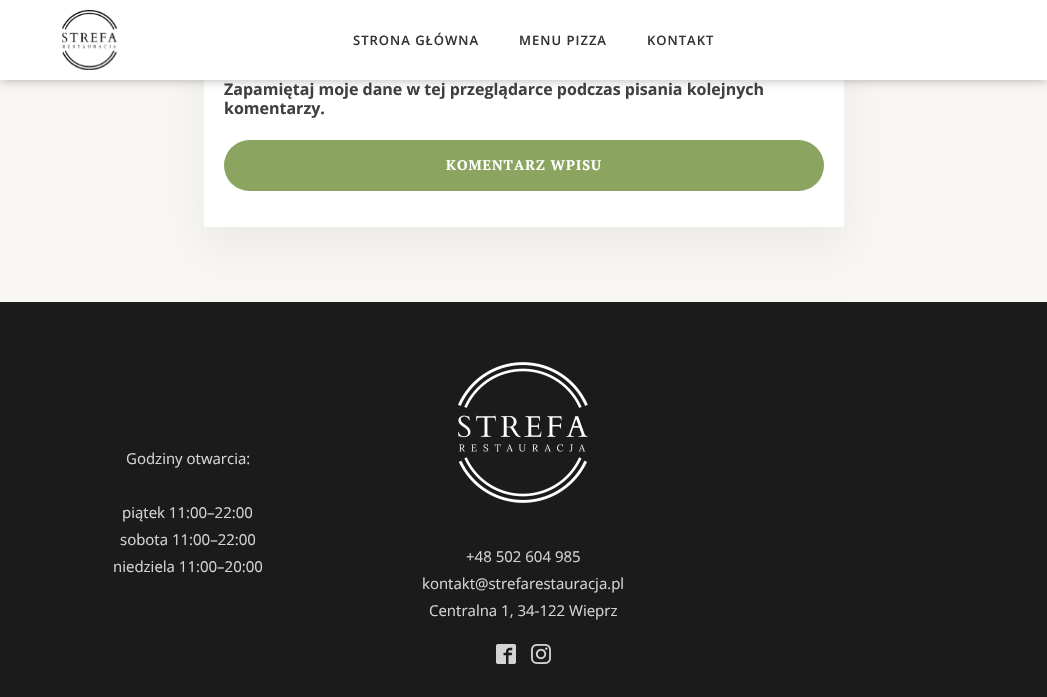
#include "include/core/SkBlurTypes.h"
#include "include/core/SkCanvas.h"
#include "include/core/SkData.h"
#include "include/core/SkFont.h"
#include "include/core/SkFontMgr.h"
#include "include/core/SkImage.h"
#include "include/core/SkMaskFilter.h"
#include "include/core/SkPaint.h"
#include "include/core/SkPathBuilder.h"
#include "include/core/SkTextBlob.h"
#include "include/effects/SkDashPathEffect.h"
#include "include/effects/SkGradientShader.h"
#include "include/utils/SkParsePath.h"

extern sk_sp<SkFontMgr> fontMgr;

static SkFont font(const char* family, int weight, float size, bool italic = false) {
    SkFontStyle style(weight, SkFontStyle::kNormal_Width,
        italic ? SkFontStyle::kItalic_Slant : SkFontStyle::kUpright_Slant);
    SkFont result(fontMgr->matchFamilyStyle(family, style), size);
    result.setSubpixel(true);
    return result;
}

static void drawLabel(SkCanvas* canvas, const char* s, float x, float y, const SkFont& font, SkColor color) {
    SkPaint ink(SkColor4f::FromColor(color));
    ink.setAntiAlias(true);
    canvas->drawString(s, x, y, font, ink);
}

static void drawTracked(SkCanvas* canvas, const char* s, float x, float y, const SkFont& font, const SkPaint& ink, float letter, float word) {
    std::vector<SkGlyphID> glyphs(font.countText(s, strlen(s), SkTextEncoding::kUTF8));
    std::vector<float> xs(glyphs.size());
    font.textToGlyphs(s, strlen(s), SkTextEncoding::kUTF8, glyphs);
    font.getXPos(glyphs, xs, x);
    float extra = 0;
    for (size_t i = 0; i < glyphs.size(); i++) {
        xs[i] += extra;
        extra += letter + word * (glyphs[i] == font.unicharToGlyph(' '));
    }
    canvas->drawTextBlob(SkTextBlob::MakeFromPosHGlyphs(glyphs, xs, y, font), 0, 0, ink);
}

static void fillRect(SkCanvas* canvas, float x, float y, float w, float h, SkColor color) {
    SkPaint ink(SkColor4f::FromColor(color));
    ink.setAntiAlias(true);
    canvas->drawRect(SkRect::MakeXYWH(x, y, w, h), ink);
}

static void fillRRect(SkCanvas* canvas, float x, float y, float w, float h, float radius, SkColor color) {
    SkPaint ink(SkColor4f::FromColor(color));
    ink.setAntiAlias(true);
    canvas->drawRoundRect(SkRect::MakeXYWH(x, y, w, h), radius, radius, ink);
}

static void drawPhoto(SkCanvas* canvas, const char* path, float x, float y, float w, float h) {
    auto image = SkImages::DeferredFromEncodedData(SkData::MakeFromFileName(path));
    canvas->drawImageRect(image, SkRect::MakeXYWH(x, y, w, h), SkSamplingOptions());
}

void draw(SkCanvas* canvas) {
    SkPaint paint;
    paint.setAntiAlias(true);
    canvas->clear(0xFFF9F7F3);
    paint.setColor(0x0D000000);
    paint.setMaskFilter(SkMaskFilter::MakeBlur(kNormal_SkBlurStyle, 20));
    canvas->drawRect(SkRect::MakeXYWH(204, -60, 640, 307), paint);
    paint.setMaskFilter(nullptr);
    fillRect(canvas, 204, 80, 640, 147, 0xFFFFFFFF);
    paint.setColor(0x4D000000);
    paint.setMaskFilter(SkMaskFilter::MakeBlur(kNormal_SkBlurStyle, 5));
    canvas->drawRect(SkRect::MakeXYWH(0, 0, 1047, 80), paint);
    paint.setMaskFilter(nullptr);
    fillRect(canvas, 0, 0, 1047, 80, 0xFFFFFFFF);
    drawPhoto(canvas, "assets/img1.png", 62, 10, 56, 60);
    SkFont font1 = font("Open Sans", 600, 13);
    paint.setColor(0xFF333333);
    drawTracked(canvas, "STRONA GŁÓWNA", 353, 45, font1, paint, 1, 0);
    drawTracked(canvas, "MENU PIZZA", 519, 45, font1, paint, 1, 0);
    drawTracked(canvas, "KONTAKT", 647, 45, font1, paint, 1, 0);
    SkFont font2 = font("Open Sans", 700, 16);
    drawLabel(canvas, "Zapamiętaj moje dane w tej przeglądarce podczas pisania kolejnych", 224, 95, font2, 0xFF404040);
    drawLabel(canvas, "komentarzy.", 224, 114, font2, 0xFF404040);
    fillRRect(canvas, 224, 140, 600, 51, 25.5f, 0xFF8BA460);
    SkFont font3 = font("PT Serif", 700, 14);
    paint.setColor(0xFFFFFFFF);
    drawTracked(canvas, "KOMENTARZ WPISU", 446, 170, font3, paint, 1, 0);
    fillRect(canvas, 0, 302, 1047, 395, 0xFF1B1B1B);
    SkFont font4 = font("Open Sans", 400, 15);
    drawLabel(canvas, "Godziny otwarcia:", 126, 464, font4, 0xFFD4D4D4);
    drawLabel(canvas, "piątek 11:00–22:00", 122, 518, font4, 0xFFD4D4D4);
    drawLabel(canvas, "sobota 11:00–22:00", 120, 545, font4, 0xFFD4D4D4);
    drawLabel(canvas, "niedziela 11:00–20:00", 113, 572, font4, 0xFFD4D4D4);
    drawPhoto(canvas, "assets/img2.png", 458, 362, 130, 141);
    drawLabel(canvas, "+48 502 604 985", 466, 562, font4, 0xFFD4D4D4);
    drawLabel(canvas, "kontakt@strefarestauracja.pl", 422, 589, font4, 0xFFD4D4D4);
    drawLabel(canvas, "Centralna 1, 34-122 Wieprz", 429, 616, font4, 0xFFD4D4D4);
    drawPhoto(canvas, "assets/img3.png", 496, 644, 20, 20);
    drawPhoto(canvas, "assets/img4.png", 531, 644, 20, 20);
}
